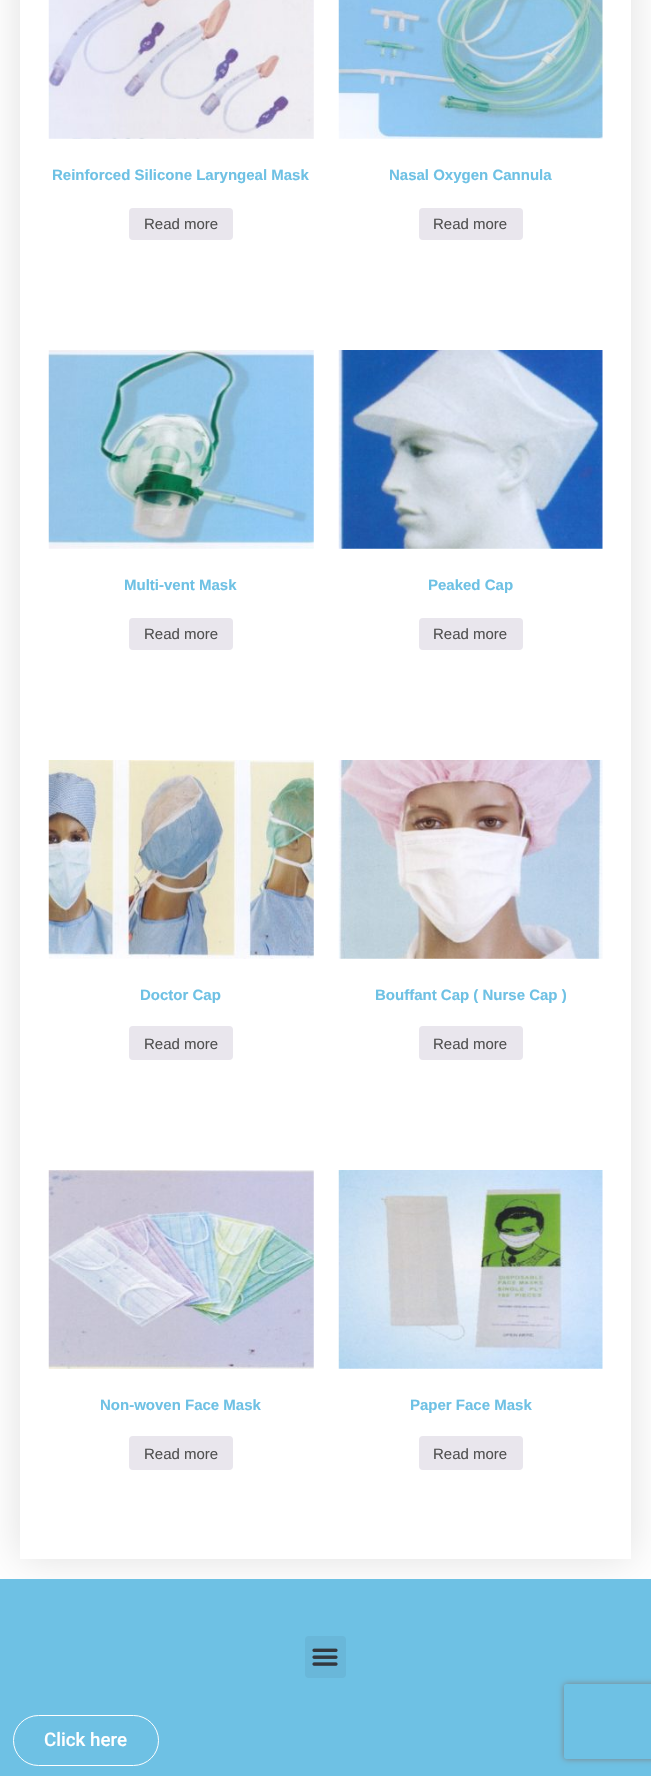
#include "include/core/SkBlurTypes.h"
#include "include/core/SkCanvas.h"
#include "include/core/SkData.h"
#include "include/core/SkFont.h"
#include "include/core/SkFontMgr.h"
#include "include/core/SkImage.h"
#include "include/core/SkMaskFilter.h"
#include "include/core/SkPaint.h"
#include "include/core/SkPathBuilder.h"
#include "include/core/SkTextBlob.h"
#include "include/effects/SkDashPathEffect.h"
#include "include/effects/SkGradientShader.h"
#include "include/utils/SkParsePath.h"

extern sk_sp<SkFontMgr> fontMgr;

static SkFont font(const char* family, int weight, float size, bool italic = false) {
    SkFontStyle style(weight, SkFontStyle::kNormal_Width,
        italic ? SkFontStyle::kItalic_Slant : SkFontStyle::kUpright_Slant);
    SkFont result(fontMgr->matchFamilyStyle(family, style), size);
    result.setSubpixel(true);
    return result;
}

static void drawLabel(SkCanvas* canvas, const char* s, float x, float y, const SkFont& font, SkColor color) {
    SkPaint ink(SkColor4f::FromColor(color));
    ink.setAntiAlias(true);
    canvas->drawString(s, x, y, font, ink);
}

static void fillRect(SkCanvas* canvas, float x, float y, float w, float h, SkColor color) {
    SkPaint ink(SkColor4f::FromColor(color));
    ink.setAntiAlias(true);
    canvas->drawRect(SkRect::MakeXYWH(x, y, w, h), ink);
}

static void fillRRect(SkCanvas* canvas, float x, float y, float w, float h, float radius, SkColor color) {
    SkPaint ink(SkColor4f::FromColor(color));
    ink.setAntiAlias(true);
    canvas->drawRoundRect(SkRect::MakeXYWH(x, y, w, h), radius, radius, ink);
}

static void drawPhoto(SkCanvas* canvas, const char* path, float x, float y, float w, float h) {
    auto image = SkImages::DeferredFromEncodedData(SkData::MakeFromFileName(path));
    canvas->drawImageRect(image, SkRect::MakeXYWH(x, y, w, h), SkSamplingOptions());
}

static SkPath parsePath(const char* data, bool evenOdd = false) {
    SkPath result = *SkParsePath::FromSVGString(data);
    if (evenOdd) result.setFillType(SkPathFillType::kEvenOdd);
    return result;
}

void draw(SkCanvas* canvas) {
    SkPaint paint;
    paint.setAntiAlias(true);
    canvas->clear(0xFFFFFFFF);
    paint.setColor(0x1F000000);
    paint.setMaskFilter(SkMaskFilter::MakeBlur(kNormal_SkBlurStyle, 19));
    canvas->drawRect(SkRect::MakeXYWH(20, -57, 611, 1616), paint);
    paint.setMaskFilter(nullptr);
    fillRect(canvas, 20, 0, 611, 1559, 0xFFFFFFFF);
    drawPhoto(canvas, "assets/img1.png", 48, 0, 266, 139);
    SkFont font1 = font("Liberation Sans", 700, 15);
    drawLabel(canvas, "Reinforced Silicone Laryngeal Mask", 52, 180, font1, 0xFF6EC1E4);
    fillRRect(canvas, 129, 208, 104, 32, 4, 0xFFE9E6ED);
    SkFont font2 = font("Liberation Sans", 400, 15);
    drawLabel(canvas, "Read more", 144, 229, font2, 0xFF515151);
    drawPhoto(canvas, "assets/img2.png", 338, 0, 265, 139);
    drawLabel(canvas, "Nasal Oxygen Cannula", 389, 180, font1, 0xFF6EC1E4);
    fillRRect(canvas, 419, 208, 104, 32, 4, 0xFFE9E6ED);
    drawLabel(canvas, "Read more", 433, 229, font2, 0xFF515151);
    drawPhoto(canvas, "assets/img3.png", 48, 350, 266, 199);
    drawLabel(canvas, "Multi-vent Mask", 124, 590, font1, 0xFF6EC1E4);
    fillRRect(canvas, 129, 618, 104, 32, 4, 0xFFE9E6ED);
    drawLabel(canvas, "Read more", 144, 639, font2, 0xFF515151);
    drawPhoto(canvas, "assets/img4.png", 338, 350, 265, 199);
    drawLabel(canvas, "Peaked Cap", 428, 590, font1, 0xFF6EC1E4);
    fillRRect(canvas, 419, 618, 104, 32, 4, 0xFFE9E6ED);
    drawLabel(canvas, "Read more", 433, 639, font2, 0xFF515151);
    drawPhoto(canvas, "assets/img5.png", 48, 760, 266, 199);
    drawLabel(canvas, "Doctor Cap", 140, 1000, font1, 0xFF6EC1E4);
    fillRRect(canvas, 129, 1026, 104, 34, 4, 0xFFE9E6ED);
    drawLabel(canvas, "Read more", 144, 1049, font2, 0xFF515151);
    drawPhoto(canvas, "assets/img6.png", 338, 760, 265, 199);
    drawLabel(canvas, "Bouffant Cap ( Nurse Cap )", 375, 1000, font1, 0xFF6EC1E4);
    fillRRect(canvas, 419, 1026, 104, 34, 4, 0xFFE9E6ED);
    drawLabel(canvas, "Read more", 433, 1049, font2, 0xFF515151);
    drawPhoto(canvas, "assets/img7.png", 48, 1170, 266, 199);
    drawLabel(canvas, "Non-woven Face Mask", 100, 1410, font1, 0xFF6EC1E4);
    fillRRect(canvas, 129, 1436, 104, 34, 4, 0xFFE9E6ED);
    drawLabel(canvas, "Read more", 144, 1459, font2, 0xFF515151);
    drawPhoto(canvas, "assets/img8.png", 338, 1170, 265, 199);
    drawLabel(canvas, "Paper Face Mask", 410, 1410, font1, 0xFF6EC1E4);
    fillRRect(canvas, 419, 1436, 104, 34, 4, 0xFFE9E6ED);
    drawLabel(canvas, "Read more", 433, 1459, font2, 0xFF515151);
    fillRect(canvas, 0, 1579, 651, 197, 0xFF6EC1E4);
    fillRRect(canvas, 305, 1636, 41, 42, 4, 0xFF69B7D9);
    drawPhoto(canvas, "assets/img9.png", 312, 1648, 26, 18);
    paint.setStroke(true);
    paint.setStrokeWidth(1);
    paint.setColor(0xFFFFFFFF);
    canvas->drawRoundRect(SkRect::MakeXYWH(13.5f, 1715.5f, 145, 50), 25, 25, paint);
    SkFont font3 = font("Roboto", 500, 18.75f);
    drawLabel(canvas, "Click here", 44, 1746, font3, 0xFFFFFFFF);
    canvas->save();
    canvas->clipPath(parsePath("M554 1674H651V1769H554ZM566.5 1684H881.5C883 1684 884 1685 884 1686.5V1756.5C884 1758 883 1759 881.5 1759H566.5C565 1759 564 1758 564 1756.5V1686.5C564 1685 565 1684 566.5 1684Z", true), true);
    paint.setStroke(false);
    paint.setColor(0xFF808080);
    paint.setMaskFilter(SkMaskFilter::MakeBlur(kNormal_SkBlurStyle, 3));
    canvas->drawRoundRect(SkRect::MakeXYWH(564, 1684, 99, 75), 2.5f, 2.5f, paint);
    paint.setMaskFilter(nullptr);
    canvas->restore();
}
